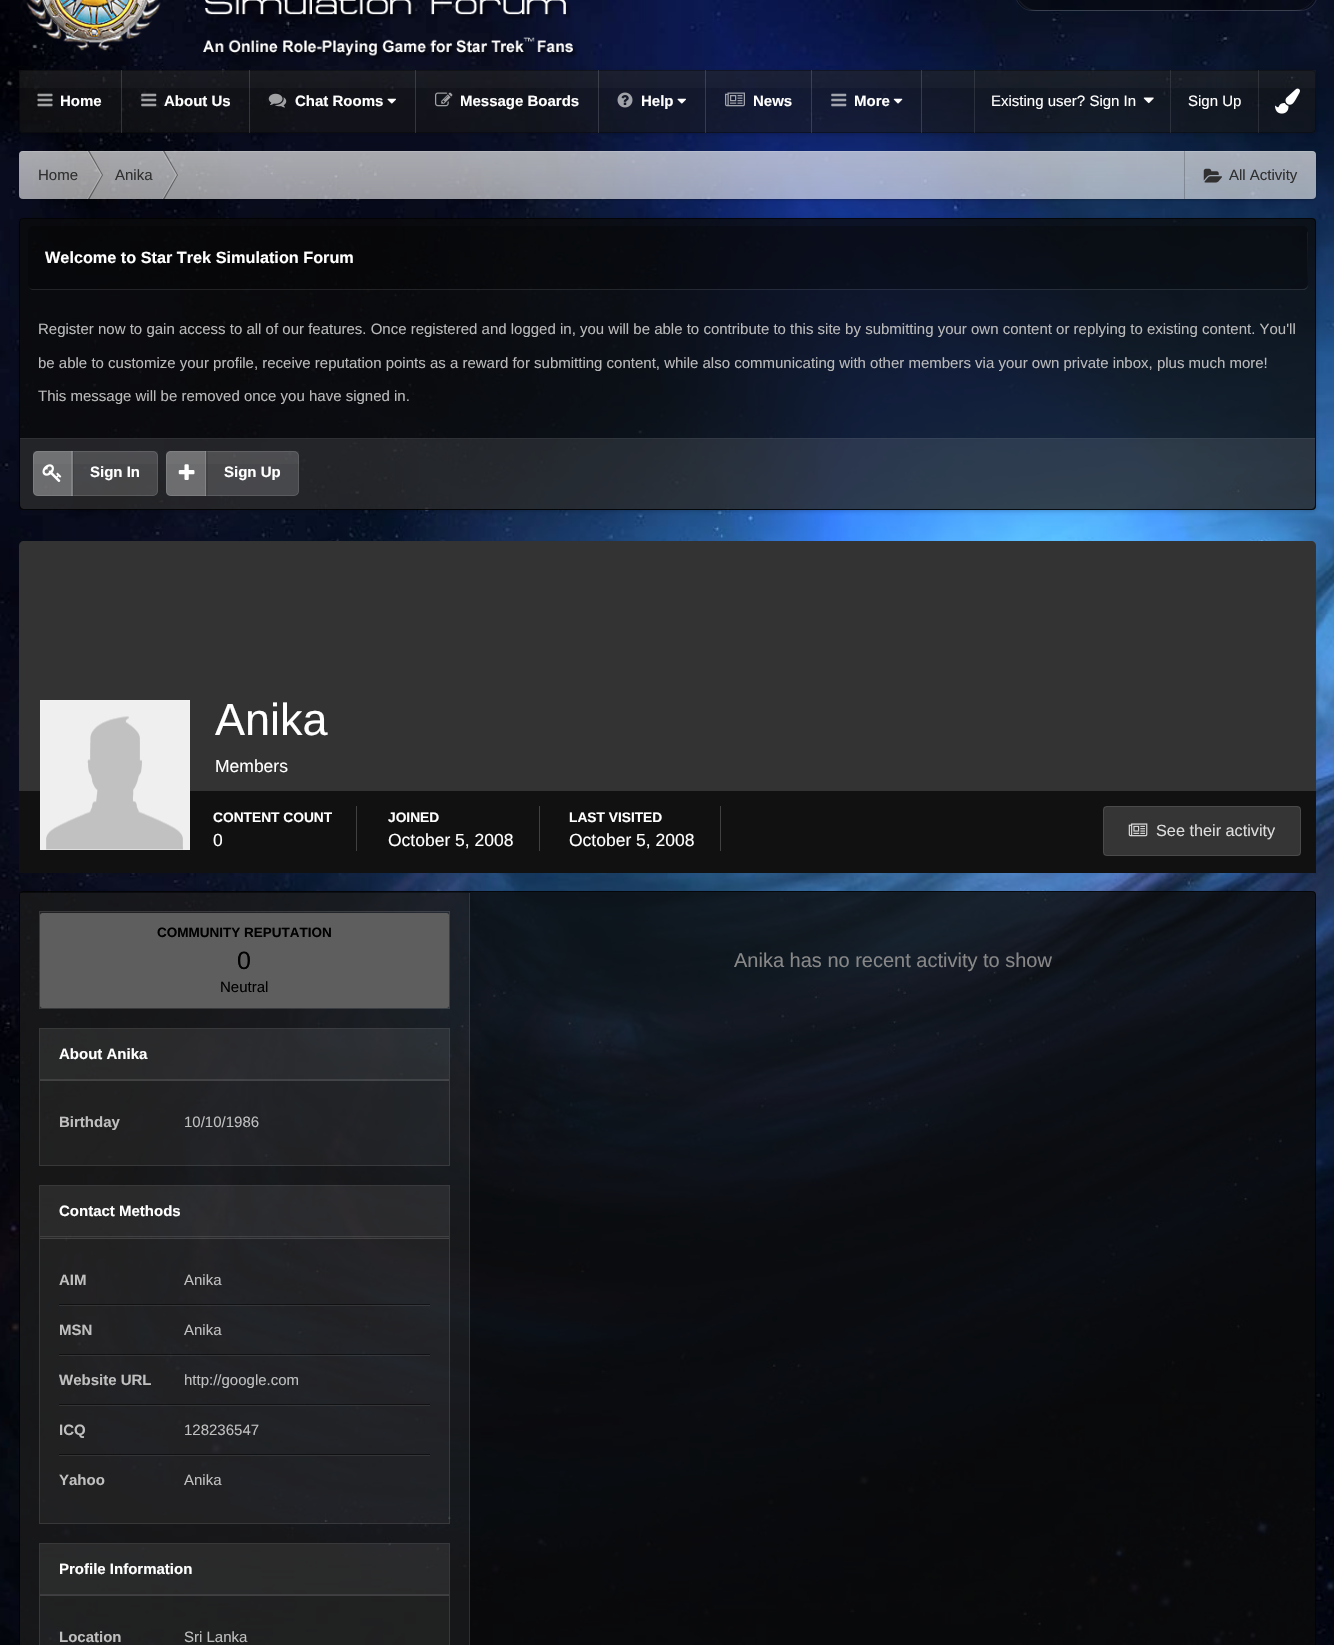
#include "include/core/SkBlurTypes.h"
#include "include/core/SkCanvas.h"
#include "include/core/SkData.h"
#include "include/core/SkFont.h"
#include "include/core/SkFontMgr.h"
#include "include/core/SkImage.h"
#include "include/core/SkMaskFilter.h"
#include "include/core/SkPaint.h"
#include "include/core/SkPathBuilder.h"
#include "include/core/SkTextBlob.h"
#include "include/effects/SkDashPathEffect.h"
#include "include/effects/SkGradientShader.h"
#include "include/utils/SkParsePath.h"

extern sk_sp<SkFontMgr> fontMgr;

static SkFont font(const char* family, int weight, float size, bool italic = false) {
    SkFontStyle style(weight, SkFontStyle::kNormal_Width,
        italic ? SkFontStyle::kItalic_Slant : SkFontStyle::kUpright_Slant);
    SkFont result(fontMgr->matchFamilyStyle(family, style), size);
    result.setSubpixel(true);
    return result;
}

static void drawLabel(SkCanvas* canvas, const char* s, float x, float y, const SkFont& font, SkColor color) {
    SkPaint ink(SkColor4f::FromColor(color));
    ink.setAntiAlias(true);
    canvas->drawString(s, x, y, font, ink);
}

static void fillRect(SkCanvas* canvas, float x, float y, float w, float h, SkColor color) {
    SkPaint ink(SkColor4f::FromColor(color));
    ink.setAntiAlias(true);
    canvas->drawRect(SkRect::MakeXYWH(x, y, w, h), ink);
}

static void fillRRect(SkCanvas* canvas, float x, float y, float w, float h, float radius, SkColor color) {
    SkPaint ink(SkColor4f::FromColor(color));
    ink.setAntiAlias(true);
    canvas->drawRoundRect(SkRect::MakeXYWH(x, y, w, h), radius, radius, ink);
}

static void drawPhoto(SkCanvas* canvas, const char* path, float x, float y, float w, float h) {
    auto image = SkImages::DeferredFromEncodedData(SkData::MakeFromFileName(path));
    canvas->drawImageRect(image, SkRect::MakeXYWH(x, y, w, h), SkSamplingOptions());
}

static SkPath parsePath(const char* data, bool evenOdd = false) {
    SkPath result = *SkParsePath::FromSVGString(data);
    if (evenOdd) result.setFillType(SkPathFillType::kEvenOdd);
    return result;
}

void draw(SkCanvas* canvas) {
    SkPaint paint;
    paint.setAntiAlias(true);
    canvas->clear(0xFFFFFFFF);
    drawPhoto(canvas, "assets/img1.png", 0, 0, 1334, 1645);
    paint.setStroke(true);
    paint.setStrokeWidth(1);
    paint.setColor(0x1AFFFFFF);
    canvas->drawRoundRect(SkRect::MakeXYWH(1015.5f, -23.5f, 302, 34), 22, 22, paint);
    paint.setStroke(false);
    canvas->drawPath(parsePath("M1017-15L1016-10C1016 2 1025 11 1037 11H1295C1305 11 1314 3 1316-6C1313 3 1305 10 1295 10H1038C1026 10 1016 0 1016-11Z"), paint);
    fillRRect(canvas, 1016, -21, 300, 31, 21, 0x66000000);
    drawPhoto(canvas, "assets/img2.png", 26, 0, 551, 60);
    canvas->save();
    canvas->clipPath(parsePath("M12 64H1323V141H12ZM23 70H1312C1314 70 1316 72 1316 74V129C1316 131 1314 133 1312 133H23C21 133 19 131 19 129V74C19 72 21 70 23 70Z", true), true);
    paint.setColor(0x33000000);
    paint.setMaskFilter(SkMaskFilter::MakeBlur(kNormal_SkBlurStyle, 2));
    canvas->drawRoundRect(SkRect::MakeXYWH(19, 71, 1297, 63), 4, 4, paint);
    paint.setMaskFilter(nullptr);
    canvas->restore();
    fillRRect(canvas, 19, 70, 1297, 63, 4, 0x9E171717);
    {
        const SkColor colors[] = {0x08FFFFFF, 0x00FFFFFF};
        const float stops[] = {0, 1};
        const SkPoint ends[] = {{668, 70}, {668, 133}};
        paint.setShader(SkGradientShader::MakeLinear(ends, colors, stops, 2, SkTileMode::kClamp));
        paint.setAlpha(255);
    }
    canvas->drawRect(SkRect::MakeXYWH(19, 70, 1297, 18), paint);
    paint.setStroke(true);
    paint.setShader(nullptr);
    paint.setColor(0x59000000);
    canvas->drawRoundRect(SkRect::MakeXYWH(19.5f, 70.5f, 1296, 62), 3.5f, 3.5f, paint);
    fillRect(canvas, 121, 70, 1, 63, 0x26FFFFFF);
    drawPhoto(canvas, "assets/img3.png", 37, 93, 16, 14);
    SkFont font1 = font("Liberation Sans", 700, 15);
    drawLabel(canvas, "Home", 60, 106, font1, 0xFFFFFFFF);
    fillRect(canvas, 249, 70, 1, 63, 0x26FFFFFF);
    drawPhoto(canvas, "assets/img4.png", 141, 93, 16, 14);
    drawLabel(canvas, "About Us", 164, 106, font1, 0xFFFFFFFF);
    fillRect(canvas, 415, 70, 1, 63, 0x26FFFFFF);
    drawPhoto(canvas, "assets/img5.png", 268, 93, 19, 15);
    drawLabel(canvas, "Chat Rooms", 295, 106, font1, 0xFFFFFFFF);
    drawPhoto(canvas, "assets/img6.png", 387, 98, 9, 6);
    fillRect(canvas, 598, 70, 1, 63, 0x26FFFFFF);
    drawPhoto(canvas, "assets/img7.png", 435, 92, 18, 15);
    drawLabel(canvas, "Message Boards", 460, 106, font1, 0xFFFFFFFF);
    fillRect(canvas, 705, 70, 1, 63, 0x26FFFFFF);
    drawPhoto(canvas, "assets/img8.png", 617, 92, 16, 16);
    drawLabel(canvas, "Help", 641, 106, font1, 0xFFFFFFFF);
    drawPhoto(canvas, "assets/img9.png", 677, 98, 9, 6);
    fillRect(canvas, 811, 70, 1, 63, 0x26FFFFFF);
    drawPhoto(canvas, "assets/img10.png", 725, 92, 20, 15);
    drawLabel(canvas, "News", 753, 106, font1, 0xFFFFFFFF);
    fillRect(canvas, 921, 70, 1, 63, 0x26FFFFFF);
    drawPhoto(canvas, "assets/img11.png", 831, 93, 16, 14);
    drawLabel(canvas, "More", 854, 106, font1, 0xFFFFFFFF);
    drawPhoto(canvas, "assets/img12.png", 893, 98, 10, 6);
    fillRect(canvas, 974, 70, 1, 63, 0x1AFFFFFF);
    SkFont font2 = font("Liberation Sans", 400, 15);
    drawLabel(canvas, "Existing user? Sign In", 991, 106, font2, 0xFFFFFFFF);
    drawPhoto(canvas, "assets/img13.png", 1143, 97, 11, 7);
    fillRect(canvas, 1170, 70, 1, 63, 0x1AFFFFFF);
    drawLabel(canvas, "Sign Up", 1188, 106, font2, 0xFFFFFFFF);
    fillRect(canvas, 1258, 70, 1, 63, 0x1AFFFFFF);
    drawPhoto(canvas, "assets/img14.png", 1275, 88, 25, 26);
    canvas->save();
    canvas->clipPath(parsePath("M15 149H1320V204H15ZM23 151H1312C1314 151 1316 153 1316 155V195C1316 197 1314 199 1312 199H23C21 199 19 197 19 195V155C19 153 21 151 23 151Z", true), true);
    paint.setStroke(false);
    paint.setColor(0x40000000);
    paint.setMaskFilter(SkMaskFilter::MakeBlur(kNormal_SkBlurStyle, 1));
    canvas->drawRoundRect(SkRect::MakeXYWH(19, 153, 1297, 47), 4, 4, paint);
    paint.setMaskFilter(nullptr);
    canvas->restore();
    fillRRect(canvas, 19, 151, 1297, 48, 4, 0x96FFFFFF);
    {
        const SkColor colors[] = {0x26FFFFFF, 0x00FFFFFF};
        const float stops[] = {0, 1};
        const SkPoint ends[] = {{668, 151}, {668, 199}};
        paint.setShader(SkGradientShader::MakeLinear(ends, colors, stops, 2, SkTileMode::kClamp));
        paint.setAlpha(255);
    }
    canvas->drawRoundRect(SkRect::MakeXYWH(19, 151, 1297, 48), 4, 4, paint);
    paint.setShader(nullptr);
    paint.setColor(0x26FFFFFF);
    canvas->drawPath(parsePath("M22 152H1312C1315 152 1316 154 1316 156V155C1316 153 1314 151 1312 151H23C21 151 19 153 19 155V156C19 154 20 152 22 152Z"), paint);
    drawLabel(canvas, "Home", 38, 180, font2, 0xFF303030);
    paint.setColor(0x33FFFFFF);
    canvas->drawPath(parsePath("M87 151H88L102 175H100.5Z"), paint);
    paint.setColor(0x66000000);
    canvas->drawPath(parsePath("M88 151H89.5L103 175H102Z"), paint);
    paint.setColor(0x33FFFFFF);
    canvas->drawPath(parsePath("M100.5 175H102L88 199H87Z"), paint);
    paint.setColor(0x66000000);
    canvas->drawPath(parsePath("M102 175H103L89.5 199H88Z"), paint);
    drawLabel(canvas, "Anika", 115, 180, font2, 0xFF303030);
    paint.setColor(0x33FFFFFF);
    canvas->drawPath(parsePath("M162 151H163L177 175H175.5Z"), paint);
    paint.setColor(0x66000000);
    canvas->drawPath(parsePath("M163 151H164.5L178 175H177Z"), paint);
    paint.setColor(0x33FFFFFF);
    canvas->drawPath(parsePath("M175.5 175H177L163 199H162Z"), paint);
    paint.setColor(0x66000000);
    canvas->drawPath(parsePath("M177 175H178L164.5 199H163Z"), paint);
    fillRect(canvas, 1184, 151, 1, 48, 0x33000000);
    drawPhoto(canvas, "assets/img15.png", 1203, 168, 19, 15);
    drawLabel(canvas, "All Activity", 1229, 180, font2, 0xFF303030);
    canvas->save();
    canvas->clipPath(parsePath("M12 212H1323V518H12ZM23 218H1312C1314 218 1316 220 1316 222V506C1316 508 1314 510 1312 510H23C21 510 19 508 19 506V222C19 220 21 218 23 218Z", true), true);
    paint.setColor(0x33000000);
    paint.setMaskFilter(SkMaskFilter::MakeBlur(kNormal_SkBlurStyle, 2));
    canvas->drawRoundRect(SkRect::MakeXYWH(19, 219, 1297, 292), 4, 4, paint);
    paint.setMaskFilter(nullptr);
    canvas->restore();
    fillRRect(canvas, 19, 218, 1297, 292, 4, 0xCC0A0A0A);
    paint.setStroke(true);
    paint.setColor(0xB3000000);
    canvas->drawRoundRect(SkRect::MakeXYWH(19.5f, 218.5f, 1296, 291), 3.5f, 3.5f, paint);
    paint.setStroke(false);
    paint.setColor(0x1AFFFFFF);
    canvas->drawPath(parsePath("M28 286C29 288 31 290 33 290H1303C1306 290 1308 288 1308 285V233L1307 231L1308 284C1308 287 1305 289 1302 289H32C31 289 29 288 28 286Z"), paint);
    fillRRect(canvas, 28, 226, 1280, 63, 5, 0x4D000000);
    SkFont font3 = font("Liberation Sans", 700, 16.25f);
    drawLabel(canvas, "Welcome to Star Trek Simulation Forum", 45, 263, font3, 0xFFFFFFFF);
    drawLabel(canvas, "Register now to gain access to all of our features. Once registered and logged in, you will be able to contribute to this site by submitting your own content or replying to existing content. You'll", 38, 334, font2, 0xFFB9B9B9);
    drawLabel(canvas, "be able to customize your profile, receive reputation points as a reward for submitting content, while also communicating with other members via your own private inbox, plus much more!", 38, 368, font2, 0xFFB9B9B9);
    drawLabel(canvas, "This message will be removed once you have signed in.", 38, 401, font2, 0xFFB9B9B9);
    canvas->drawPath(parsePath("M20 438H1315V504C1315 507 1313 509 1310 509H25C22 509 20 507 20 504Z"), paint);
    fillRect(canvas, 20, 438, 1295, 1, 0x0DFFFFFF);
    fillRRect(canvas, 33, 451, 125, 45, 5, 0x29FFFFFF);
    {
        const SkColor colors[] = {0x08FFFFFF, 0x00FFFFFF};
        const float stops[] = {0, 1};
        const SkPoint ends[] = {{95, 451}, {95, 496}};
        paint.setShader(SkGradientShader::MakeLinear(ends, colors, stops, 2, SkTileMode::kClamp));
        paint.setAlpha(255);
    }
    canvas->drawRect(SkRect::MakeXYWH(33, 451, 125, 13), paint);
    paint.setStroke(true);
    paint.setShader(nullptr);
    paint.setColor(0x1AFFFFFF);
    canvas->drawRoundRect(SkRect::MakeXYWH(33.5f, 451.5f, 124, 44), 4.5f, 4.5f, paint);
    paint.setStroke(false);
    paint.setColor(0x1A000000);
    canvas->drawPath(parsePath("M38 451H37H72V496H74V451Z"), paint);
    paint.setColor(0x33FFFFFF);
    canvas->drawPath(parsePath("M37 451H73V496H37C35 496 33 494 33 492V455C33 453 35 451 37 451Z"), paint);
    fillRect(canvas, 71, 451, 2, 45, 0x26FFFFFF);
    drawPhoto(canvas, "assets/img16.png", 42, 464, 20, 18);
    drawLabel(canvas, "Sign In", 90, 477, font1, 0xFFFFFFFF);
    fillRRect(canvas, 166, 451, 133, 45, 5, 0x29FFFFFF);
    {
        const SkColor colors[] = {0x08FFFFFF, 0x00FFFFFF};
        const float stops[] = {0, 1};
        const SkPoint ends[] = {{233, 451}, {233, 496}};
        paint.setShader(SkGradientShader::MakeLinear(ends, colors, stops, 2, SkTileMode::kClamp));
        paint.setAlpha(255);
    }
    canvas->drawRect(SkRect::MakeXYWH(166, 451, 133, 13), paint);
    paint.setStroke(true);
    paint.setShader(nullptr);
    paint.setColor(0x1AFFFFFF);
    canvas->drawRoundRect(SkRect::MakeXYWH(166.5f, 451.5f, 132, 44), 4.5f, 4.5f, paint);
    paint.setStroke(false);
    paint.setColor(0x1A000000);
    canvas->drawPath(parsePath("M172 451H171H206V496H208V451Z"), paint);
    paint.setColor(0x33FFFFFF);
    canvas->drawPath(parsePath("M170 451H206V496H170C168 496 166 494 166 492V455C166 453 168 451 170 451Z"), paint);
    fillRect(canvas, 205, 451, 1, 45, 0x26FFFFFF);
    drawPhoto(canvas, "assets/img17.png", 178, 464, 17, 16);
    drawLabel(canvas, "Sign Up", 224, 477, font1, 0xFFFFFFFF);
    paint.setColor(0xFF333333);
    canvas->drawPath(parsePath("M24 541H1311C1314 541 1316 543 1316 546V791H19V546C19 543 21 541 24 541Z"), paint);
    fillRect(canvas, 19, 791, 1297, 82, 0xFF111111);
    fillRect(canvas, 40, 700, 150, 150, 0xFFEFEFEF);
    drawPhoto(canvas, "assets/img18.png", 46, 716, 137, 134);
    paint.setStroke(true);
    paint.setColor(0x26FFFFFF);
    canvas->drawRect(SkRect::MakeXYWH(40.5f, 700.5f, 149, 149), paint);
    SkFont font4 = font("Liberation Sans", 400, 45);
    drawLabel(canvas, "Anika", 215, 735, font4, 0xFFFFFFFF);
    SkFont font5 = font("Liberation Sans", 400, 17.5f);
    drawLabel(canvas, "Members", 215, 772, font5, 0xFFFFFFFF);
    fillRect(canvas, 356, 806, 1, 45, 0xFF414141);
    SkFont font6 = font("Liberation Sans", 700, 13.75f);
    drawLabel(canvas, "CONTENT COUNT", 213, 822, font6, 0xFFFFFFFF);
    drawLabel(canvas, "0", 213, 846, font5, 0xFFFFFFFF);
    fillRect(canvas, 539, 806, 1, 45, 0xFF414141);
    drawLabel(canvas, "JOINED", 388, 822, font6, 0xFFFFFFFF);
    drawLabel(canvas, "October 5, 2008", 388, 846, font5, 0xFFFFFFFF);
    fillRect(canvas, 720, 806, 1, 45, 0xFF414141);
    drawLabel(canvas, "LAST VISITED", 569, 822, font6, 0xFFFFFFFF);
    drawLabel(canvas, "October 5, 2008", 569, 846, font5, 0xFFFFFFFF);
    fillRRect(canvas, 1103, 806, 198, 50, 4, 0xFF353535);
    paint.setColor(0x1AFFFFFF);
    canvas->drawRoundRect(SkRect::MakeXYWH(1103.5f, 806.5f, 197, 49), 3.5f, 3.5f, paint);
    drawPhoto(canvas, "assets/img19.png", 1128, 823, 20, 14);
    SkFont font7 = font("Liberation Sans", 400, 16.25f);
    drawLabel(canvas, "See their activity", 1156, 836, font7, 0xFFDDDDDD);
    fillRRect(canvas, 19, 891, 1297, 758, 4, 0xCC0A0A0A);
    paint.setColor(0xB3000000);
    canvas->drawRoundRect(SkRect::MakeXYWH(19.5f, 891.5f, 1296, 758), 3.5f, 3.5f, paint);
    fillRect(canvas, 20, 893, 450, 752, 0x0DFFFFFF);
    fillRect(canvas, 469, 893, 1, 752, 0x1AFFFFFF);
    fillRect(canvas, 39, 911, 411, 98, 0x0AFFFFFF);
    paint.setColor(0x1AFFFFFF);
    canvas->drawRect(SkRect::MakeXYWH(39.5f, 911.5f, 410, 97), paint);
    fillRRect(canvas, 40, 913, 409, 95, 2.5f, 0xFF5E5E5E);
    SkFont font8 = font("Liberation Sans", 700, 13.5f);
    drawLabel(canvas, "COMMUNITY REPUTATION", 157, 937, font8, 0xFF000000);
    SkFont font9 = font("Liberation Sans", 400, 25);
    drawLabel(canvas, "0", 237, 969, font9, 0xFF000000);
    drawLabel(canvas, "Neutral", 220, 992, font2, 0xFF000000);
    fillRect(canvas, 39, 1028, 411, 138, 0x0AFFFFFF);
    canvas->drawRect(SkRect::MakeXYWH(39.5f, 1028.5f, 410, 137), paint);
    paint.setStroke(false);
    paint.setColor(0x26FFFFFF);
    canvas->drawPath(parsePath("M40 1080V1081H449V1030V1080Z"), paint);
    fillRect(canvas, 40, 1029, 409, 51, 0x0AFFFFFF);
    fillRect(canvas, 40, 1079, 409, 1, 0x1AFFFFFF);
    drawLabel(canvas, "About Anika", 59, 1059, font1, 0xFFFFFFFF);
    drawLabel(canvas, "Birthday", 59, 1127, font1, 0xFFBFBFBF);
    drawLabel(canvas, "10/10/1986", 184, 1127, font2, 0xFFBFBFBF);
    fillRect(canvas, 39, 1185, 411, 339, 0x0AFFFFFF);
    paint.setStroke(true);
    paint.setColor(0x1AFFFFFF);
    canvas->drawRect(SkRect::MakeXYWH(39.5f, 1185.5f, 410, 338), paint);
    paint.setStroke(false);
    paint.setColor(0x26FFFFFF);
    canvas->drawPath(parsePath("M40 1238V1239H449V1188V1238Z"), paint);
    fillRect(canvas, 40, 1186, 409, 52, 0x0AFFFFFF);
    fillRect(canvas, 40, 1236, 409, 1, 0x1AFFFFFF);
    drawLabel(canvas, "Contact Methods", 59, 1216, font1, 0xFFFFFFFF);
    fillRect(canvas, 59, 1304, 371, 1, 0x80000000);
    drawLabel(canvas, "AIM", 59, 1285, font1, 0xFFBFBFBF);
    drawLabel(canvas, "Anika", 184, 1285, font2, 0xFFBFBFBF);
    fillRect(canvas, 59, 1305, 371, 1, 0x14FFFFFF);
    fillRect(canvas, 59, 1354, 371, 1, 0x80000000);
    drawLabel(canvas, "MSN", 59, 1335, font1, 0xFFBFBFBF);
    drawLabel(canvas, "Anika", 184, 1335, font2, 0xFFBFBFBF);
    fillRect(canvas, 59, 1355, 371, 1, 0x14FFFFFF);
    fillRect(canvas, 59, 1404, 371, 1, 0x80000000);
    drawLabel(canvas, "Website URL", 59, 1385, font1, 0xFFBFBFBF);
    drawLabel(canvas, "http://google.com", 184, 1385, font2, 0xFFBFBFBF);
    fillRect(canvas, 59, 1405, 371, 1, 0x14FFFFFF);
    fillRect(canvas, 59, 1454, 371, 1, 0x80000000);
    drawLabel(canvas, "ICQ", 59, 1435, font1, 0xFFBFBFBF);
    drawLabel(canvas, "128236547", 184, 1435, font2, 0xFFBFBFBF);
    fillRect(canvas, 59, 1455, 371, 1, 0x14FFFFFF);
    drawLabel(canvas, "Yahoo", 59, 1485, font1, 0xFFBFBFBF);
    drawLabel(canvas, "Anika", 184, 1485, font2, 0xFFBFBFBF);
    fillRect(canvas, 39, 1543, 411, 102, 0x0AFFFFFF);
    paint.setStroke(true);
    paint.setColor(0x1AFFFFFF);
    canvas->drawRect(SkRect::MakeXYWH(39.5f, 1543.5f, 410, 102), paint);
    paint.setStroke(false);
    paint.setColor(0xFF404042);
    canvas->drawPath(parsePath("M40 1595V1596H449V1545V1595Z"), paint);
    fillRect(canvas, 40, 1544, 409, 50, 0x0AFFFFFF);
    fillRect(canvas, 40, 1594, 409, 1, 0xFF3D3D3F);
    drawLabel(canvas, "Profile Information", 59, 1574, font1, 0xFFFFFFFF);
    drawLabel(canvas, "Location", 59, 1642, font1, 0xFFBFBFBF);
    drawLabel(canvas, "Sri Lanka", 184, 1642, font2, 0xFFBFBFBF);
    SkFont font10 = font("Liberation Sans", 400, 20);
    drawLabel(canvas, "Anika has no recent activity to show", 734, 967, font10, 0xFF878787);
}
